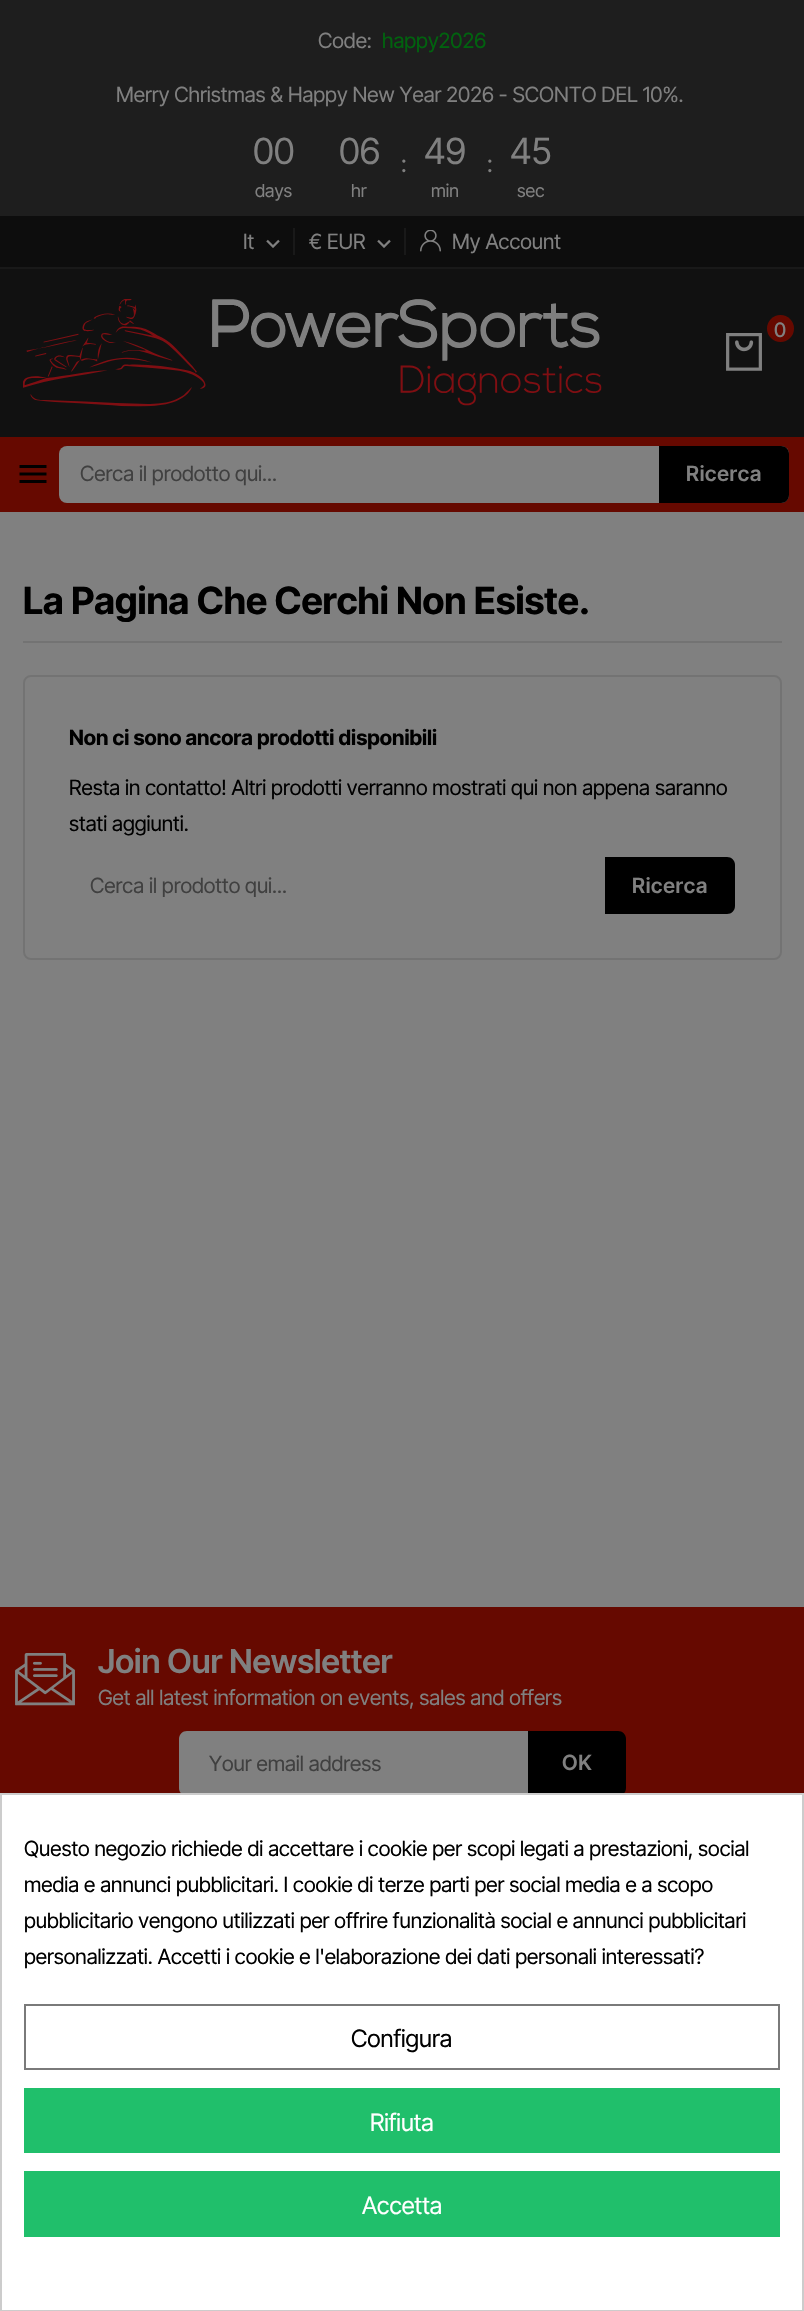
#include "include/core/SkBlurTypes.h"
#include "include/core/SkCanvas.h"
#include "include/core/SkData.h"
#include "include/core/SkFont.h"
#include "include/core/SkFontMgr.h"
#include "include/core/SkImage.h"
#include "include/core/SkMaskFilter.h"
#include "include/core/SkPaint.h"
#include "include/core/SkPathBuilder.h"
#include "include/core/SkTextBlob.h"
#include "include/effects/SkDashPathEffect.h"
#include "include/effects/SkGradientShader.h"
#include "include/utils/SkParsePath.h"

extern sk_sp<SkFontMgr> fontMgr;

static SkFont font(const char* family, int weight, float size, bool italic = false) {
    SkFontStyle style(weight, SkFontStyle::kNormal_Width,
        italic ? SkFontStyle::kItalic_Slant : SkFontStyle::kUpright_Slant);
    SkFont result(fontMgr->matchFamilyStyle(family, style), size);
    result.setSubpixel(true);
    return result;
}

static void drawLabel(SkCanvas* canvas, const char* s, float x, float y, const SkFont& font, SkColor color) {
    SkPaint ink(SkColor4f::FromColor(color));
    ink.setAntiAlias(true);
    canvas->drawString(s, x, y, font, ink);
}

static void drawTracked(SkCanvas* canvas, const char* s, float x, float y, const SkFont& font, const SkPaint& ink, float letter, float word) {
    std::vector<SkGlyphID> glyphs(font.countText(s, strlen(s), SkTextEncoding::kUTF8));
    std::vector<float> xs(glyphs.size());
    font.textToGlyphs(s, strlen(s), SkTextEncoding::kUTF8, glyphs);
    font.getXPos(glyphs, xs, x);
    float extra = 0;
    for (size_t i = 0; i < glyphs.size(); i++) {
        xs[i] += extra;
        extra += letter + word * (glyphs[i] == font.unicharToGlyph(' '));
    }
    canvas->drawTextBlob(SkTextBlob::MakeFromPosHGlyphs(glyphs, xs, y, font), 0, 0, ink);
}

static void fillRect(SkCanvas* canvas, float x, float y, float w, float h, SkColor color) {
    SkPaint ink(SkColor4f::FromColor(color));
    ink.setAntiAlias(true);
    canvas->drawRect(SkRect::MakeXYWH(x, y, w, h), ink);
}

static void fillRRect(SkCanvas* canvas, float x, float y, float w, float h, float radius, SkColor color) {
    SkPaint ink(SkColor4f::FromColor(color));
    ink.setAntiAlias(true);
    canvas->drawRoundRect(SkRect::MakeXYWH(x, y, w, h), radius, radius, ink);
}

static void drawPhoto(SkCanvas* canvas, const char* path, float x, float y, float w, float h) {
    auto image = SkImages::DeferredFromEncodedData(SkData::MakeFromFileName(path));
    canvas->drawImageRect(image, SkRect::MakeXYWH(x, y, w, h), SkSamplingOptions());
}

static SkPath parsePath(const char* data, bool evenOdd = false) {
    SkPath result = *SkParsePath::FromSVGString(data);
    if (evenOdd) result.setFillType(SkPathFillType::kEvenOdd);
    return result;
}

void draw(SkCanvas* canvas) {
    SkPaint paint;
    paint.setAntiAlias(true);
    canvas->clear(0xFF808080);
    fillRect(canvas, 0, 216, 804, 51, 0xFF0D0D0D);
    fillRect(canvas, 0, 0, 804, 216, 0xFF1E1E1E);
    SkFont font1 = font("Inter Tight", 400, 21);
    drawLabel(canvas, "Code:", 318, 48, font1, 0xFF808080);
    drawLabel(canvas, "happy2026", 382, 48, font1, 0xFF00630E);
    drawLabel(canvas, "Merry Christmas & Happy New Year 2026 - SCONTO DEL 10%.", 116, 102, font1, 0xFF808080);
    SkFont font2 = font("Inter Tight", 400, 36);
    drawLabel(canvas, "00", 253, 164, font2, 0xFF808080);
    SkFont font3 = font("Inter Tight", 400, 18);
    drawLabel(canvas, "days", 255, 197, font3, 0xFF808080);
    drawLabel(canvas, "06", 339, 164, font2, 0xFF808080);
    SkFont font4 = font("Inter Tight", 400, 24);
    drawLabel(canvas, ":", 401, 172, font4, 0xFF808080);
    drawLabel(canvas, "hr", 351, 197, font3, 0xFF808080);
    drawLabel(canvas, "49", 424, 164, font2, 0xFF808080);
    drawLabel(canvas, ":", 487, 172, font4, 0xFF808080);
    drawLabel(canvas, "min", 431, 197, font3, 0xFF808080);
    drawLabel(canvas, "45", 510, 164, font2, 0xFF808080);
    drawLabel(canvas, "sec", 517, 197, font3, 0xFF808080);
    fillRect(canvas, 0, 267, 804, 2, 0xFF191919);
    drawLabel(canvas, "It", 243, 249, font1, 0xFF808080);
    drawPhoto(canvas, "assets/img1.png", 266, 239, 14, 9);
    fillRect(canvas, 293, 228, 2, 27, 0xFF191919);
    drawLabel(canvas, "€ EUR", 309, 249, font1, 0xFF808080);
    drawPhoto(canvas, "assets/img1.png", 377, 239, 14, 9);
    fillRect(canvas, 404, 228, 2, 27, 0xFF191919);
    drawPhoto(canvas, "assets/img2.png", 420, 230, 21, 22);
    drawLabel(canvas, "My Account", 452, 249, font1, 0xFF808080);
    fillRect(canvas, 0, 269, 804, 168, 0xFF111111);
    drawPhoto(canvas, "assets/img3.png", 23, 299, 579, 108);
    paint.setColor(0xFF660900);
    canvas->drawCircle(780.5f, 328.5f, 13.5f, paint);
    SkFont font5 = font("Inter Tight", 500, 20);
    drawLabel(canvas, "0", 774, 337, font5, 0xFF808080);
    drawPhoto(canvas, "assets/img4.png", 726, 333, 36, 38);
    fillRect(canvas, 0, 437, 804, 75, 0xFF660900);
    drawPhoto(canvas, "assets/img5.png", 19, 465, 28, 18);
    fillRRect(canvas, 59, 446, 730, 57, 8, 0xFF808080);
    drawLabel(canvas, "Cerca il prodotto qui...", 80, 481, font1, 0xFF404040);
    paint.setColor(0xFF000000);
    canvas->drawPath(parsePath("M659 446H781C785.5 446 789 449.5 789 454V495C789 499.5 785.5 503 781 503H659Z"), paint);
    SkFont font6 = font("Inter Tight", 600, 21);
    paint.setColor(0xFF808080);
    drawTracked(canvas, "Ricerca", 686, 481, font6, paint, 0.75f, 0);
    fillRect(canvas, 23, 641, 759, 2, 0xFF737373);
    SkFont font7 = font("Inter Tight", 700, 37.5f);
    drawLabel(canvas, "La Pagina Che Cerchi Non Esiste.", 23, 614, font7, 0xFF000000);
    paint.setStroke(true);
    paint.setStrokeWidth(2);
    paint.setColor(0xFF737373);
    canvas->drawRoundRect(SkRect::MakeXYWH(24, 676, 757, 283), 7, 7, paint);
    SkFont font8 = font("Inter Tight", 700, 21);
    drawLabel(canvas, "Non ci sono ancora prodotti disponibili", 69, 745, font8, 0xFF000000);
    drawLabel(canvas, "Resta in contatto! Altri prodotti verranno mostrati qui non appena saranno", 69, 795, font1, 0xFF000000);
    drawLabel(canvas, "stati aggiunti.", 69, 831, font1, 0xFF000000);
    canvas->save();
    canvas->clipRect(SkRect::MakeXYWH(90, 872, 624, 25));
    drawLabel(canvas, "Cerca il prodotto qui...", 90, 893, font1, 0xFF404040);
    canvas->restore();
    paint.setStroke(false);
    paint.setColor(0xFF000000);
    canvas->drawPath(parsePath("M605 857H727C731.5 857 735 860.5 735 865V906C735 910.5 731.5 914 727 914H605Z"), paint);
    paint.setColor(0xFF808080);
    drawTracked(canvas, "Ricerca", 632, 893, font6, paint, 0.75f, 0);
    fillRect(canvas, 0, 1607, 804, 186, 0xFF660900);
    drawPhoto(canvas, "assets/img6.png", 15, 1653, 60, 53);
    SkFont font9 = font("Inter Tight", 600, 33);
    drawLabel(canvas, "Join Our Newsletter", 98, 1673, font9, 0xFF808080);
    drawLabel(canvas, "Get all latest information on events, sales and offers", 98, 1705, font1, 0xFF808080);
    canvas->drawPath(parsePath("M187 1731H528V1796H187C182.5 1796 179 1792.5 179 1788V1739C179 1734.5 182.5 1731 187 1731Z"), paint);
    drawLabel(canvas, "Your email address", 209, 1771, font1, 0xFF404040);
    paint.setColor(0xFF000000);
    canvas->drawPath(parsePath("M528 1731H618C622.5 1731 626 1734.5 626 1739V1788C626 1792.5 622.5 1796 618 1796H528Z"), paint);
    paint.setColor(0xFF808080);
    drawTracked(canvas, "OK", 562, 1770, font6, paint, 0.75f, 0);
    paint.setColor(0xFFFFFFFF);
    canvas->drawRect(SkRect::MakeXYWH(1, 1794, 802, 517), paint);
    paint.setStroke(true);
    paint.setColor(0xFFCCCCCC);
    canvas->drawRect(SkRect::MakeXYWH(1, 1794, 802, 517), paint);
    drawLabel(canvas, "Questo negozio richiede di accettare i cookie per scopi legati a prestazioni, social", 24, 1856, font1, 0xFF000000);
    drawLabel(canvas, "media e annunci pubblicitari. I cookie di terze parti per social media e a scopo", 24, 1892, font1, 0xFF000000);
    drawLabel(canvas, "pubblicitario vengono utilizzati per offrire funzionalità social e annunci pubblicitari", 24, 1928, font1, 0xFF000000);
    drawLabel(canvas, "personalizzati. Accetti i cookie e l'elaborazione dei dati personali interessati?", 24, 1964, font1, 0xFF000000);
    paint.setColor(0xFF7A7A7A);
    canvas->drawRect(SkRect::MakeXYWH(25, 2005, 754, 64), paint);
    drawLabel(canvas, "Configura", 351, 2047, font4, 0xFF000000);
    fillRect(canvas, 24, 2088, 756, 65, 0xFF20BF6B);
    drawLabel(canvas, "Rifiuta", 370, 2131, font4, 0xFFFFFFFF);
    fillRect(canvas, 24, 2171, 756, 66, 0xFF20BF6B);
    drawLabel(canvas, "Accetta", 362, 2214, font4, 0xFFFFFFFF);
}
